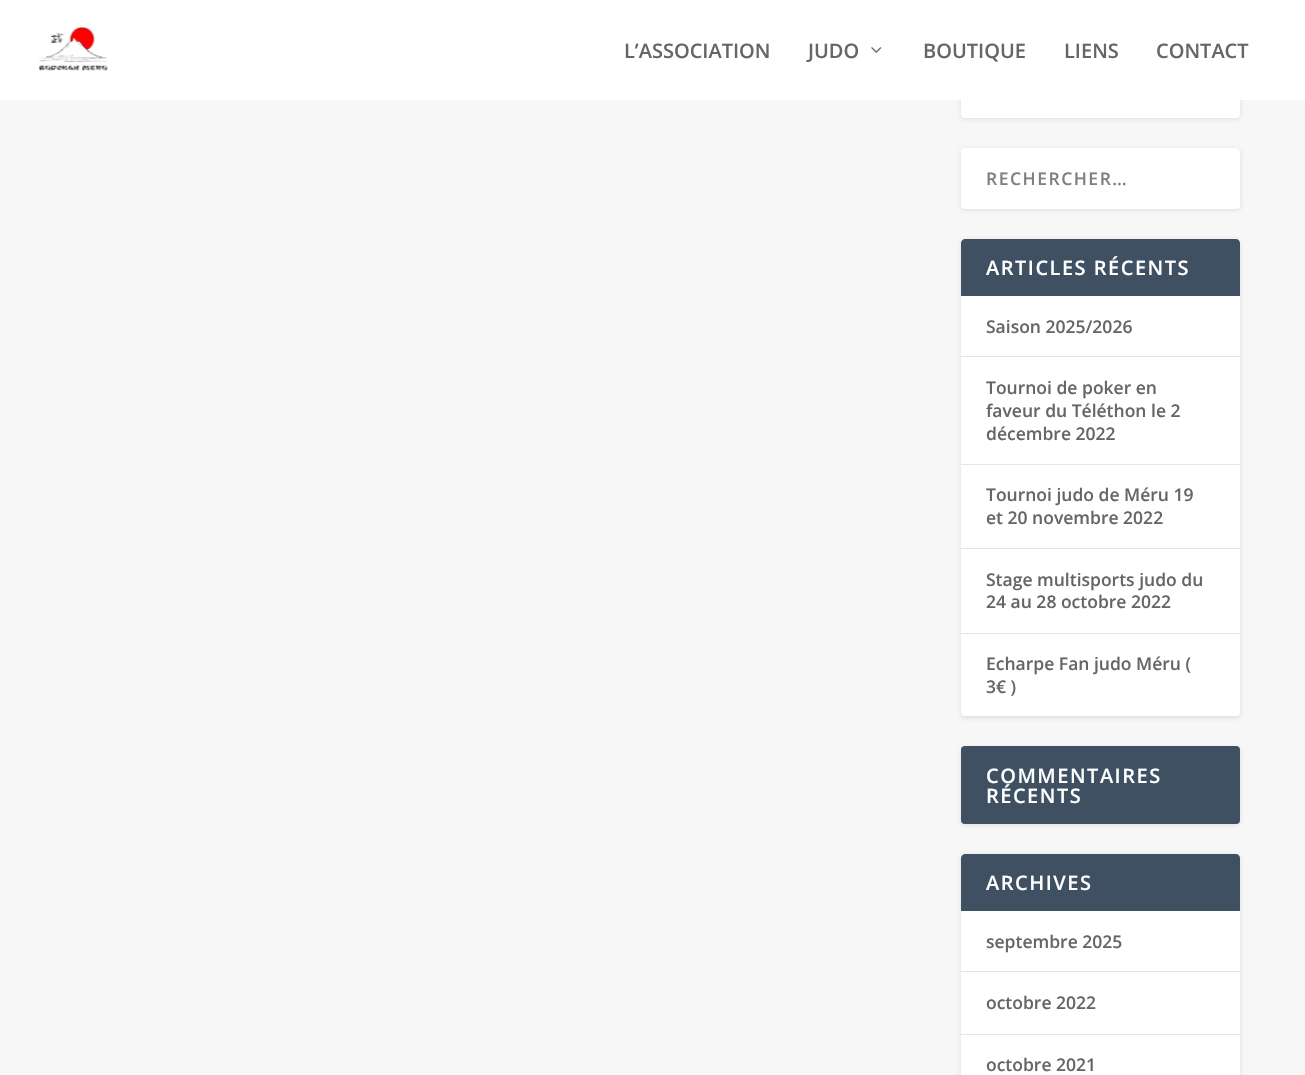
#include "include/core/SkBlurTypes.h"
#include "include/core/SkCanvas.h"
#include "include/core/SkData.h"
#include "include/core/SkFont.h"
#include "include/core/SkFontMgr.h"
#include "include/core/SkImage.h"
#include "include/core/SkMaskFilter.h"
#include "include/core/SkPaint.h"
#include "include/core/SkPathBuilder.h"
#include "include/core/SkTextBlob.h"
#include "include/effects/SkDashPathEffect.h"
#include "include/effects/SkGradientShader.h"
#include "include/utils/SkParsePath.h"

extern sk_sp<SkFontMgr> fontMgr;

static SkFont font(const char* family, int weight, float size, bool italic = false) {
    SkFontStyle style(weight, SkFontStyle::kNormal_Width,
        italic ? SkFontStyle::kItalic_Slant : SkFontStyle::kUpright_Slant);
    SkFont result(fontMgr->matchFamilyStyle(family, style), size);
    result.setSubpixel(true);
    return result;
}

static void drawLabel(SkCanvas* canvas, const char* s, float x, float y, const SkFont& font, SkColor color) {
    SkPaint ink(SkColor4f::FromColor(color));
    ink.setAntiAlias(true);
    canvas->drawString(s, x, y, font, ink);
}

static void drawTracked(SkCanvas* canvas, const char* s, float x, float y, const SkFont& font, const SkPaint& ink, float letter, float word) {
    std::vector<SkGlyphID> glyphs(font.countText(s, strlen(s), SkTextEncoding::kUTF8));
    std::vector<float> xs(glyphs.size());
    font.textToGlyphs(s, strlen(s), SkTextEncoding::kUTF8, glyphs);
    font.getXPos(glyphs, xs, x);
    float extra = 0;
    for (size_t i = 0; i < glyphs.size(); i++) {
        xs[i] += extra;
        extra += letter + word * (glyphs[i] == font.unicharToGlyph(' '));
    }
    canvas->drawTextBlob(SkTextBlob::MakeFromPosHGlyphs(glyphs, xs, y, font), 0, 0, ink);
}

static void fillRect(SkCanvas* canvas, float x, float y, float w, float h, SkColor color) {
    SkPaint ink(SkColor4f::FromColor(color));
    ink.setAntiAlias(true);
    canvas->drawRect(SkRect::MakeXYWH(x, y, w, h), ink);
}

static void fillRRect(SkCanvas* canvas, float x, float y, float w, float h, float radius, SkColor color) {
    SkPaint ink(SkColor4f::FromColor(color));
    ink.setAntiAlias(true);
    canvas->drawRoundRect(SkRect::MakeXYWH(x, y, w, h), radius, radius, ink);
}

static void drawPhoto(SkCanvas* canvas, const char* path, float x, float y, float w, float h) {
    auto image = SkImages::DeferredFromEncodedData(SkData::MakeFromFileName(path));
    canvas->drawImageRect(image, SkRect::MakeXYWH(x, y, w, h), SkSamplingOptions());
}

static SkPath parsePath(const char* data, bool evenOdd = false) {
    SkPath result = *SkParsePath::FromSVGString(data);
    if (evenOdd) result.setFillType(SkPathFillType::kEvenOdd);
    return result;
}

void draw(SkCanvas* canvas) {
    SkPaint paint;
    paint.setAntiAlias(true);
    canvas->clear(0xFFF7F7F7);
    paint.setColor(0x1A000000);
    paint.setMaskFilter(SkMaskFilter::MakeBlur(kNormal_SkBlurStyle, 2));
    canvas->drawRoundRect(SkRect::MakeXYWH(961, -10, 279, 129), 4, 4, paint);
    paint.setMaskFilter(nullptr);
    fillRRect(canvas, 961, -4, 279, 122, 4, 0xFFFFFFFF);
    fillRect(canvas, 0, 0, 1305, 100, 0xFFFFFFFF);
    drawPhoto(canvas, "assets/img1.png", 38, 25, 70, 46);
    SkFont font1 = font("Open Sans", 600, 20);
    drawLabel(canvas, "L’ASSOCIATION", 624, 58, font1, 0xFF666666);
    drawLabel(canvas, "JUDO", 808, 58, font1, 0xFF666666);
    drawPhoto(canvas, "assets/img2.png", 871, 47, 11, 6);
    drawLabel(canvas, "BOUTIQUE", 923, 58, font1, 0xFF666666);
    drawLabel(canvas, "LIENS", 1064, 58, font1, 0xFF666666);
    drawLabel(canvas, "CONTACT", 1156, 58, font1, 0xFF666666);
    paint.setMaskFilter(SkMaskFilter::MakeBlur(kNormal_SkBlurStyle, 2));
    canvas->drawRoundRect(SkRect::MakeXYWH(961, 149, 279, 61), 4, 4, paint);
    paint.setMaskFilter(nullptr);
    fillRRect(canvas, 961, 148, 279, 61, 4, 0xFFFFFFFF);
    SkFont font2 = font("Open Sans", 600, 17.5f);
    paint.setColor(0xFF808080);
    drawTracked(canvas, "RECHERCHER…", 986, 185, font2, paint, 1.5f, 0);
    paint.setColor(0x1A000000);
    paint.setMaskFilter(SkMaskFilter::MakeBlur(kNormal_SkBlurStyle, 2));
    canvas->drawRoundRect(SkRect::MakeXYWH(961, 240, 279, 478), 4, 4, paint);
    paint.setMaskFilter(nullptr);
    fillRRect(canvas, 961, 239, 279, 477, 4, 0xFFFFFFFF);
    paint.setColor(0xFF3E5062);
    canvas->drawPath(parsePath("M965 239H1236C1238 239 1240 241 1240 243V296H961V243C961 241 963 239 965 239Z"), paint);
    paint.setColor(0xFFFFFFFF);
    drawTracked(canvas, "ARTICLES RÉCENTS", 986, 275, font1, paint, 1.5f, 0);
    fillRect(canvas, 961, 356, 279, 1, 0xFFE6E6E6);
    drawLabel(canvas, "Saison 2025/2026", 986, 333, font2, 0xFF666666);
    fillRect(canvas, 961, 464, 279, 1, 0xFFE6E6E6);
    drawLabel(canvas, "Tournoi de poker en", 986, 394, font2, 0xFF666666);
    drawLabel(canvas, "faveur du Téléthon le 2", 986, 417, font2, 0xFF666666);
    drawLabel(canvas, "décembre 2022", 986, 440, font2, 0xFF666666);
    fillRect(canvas, 961, 548, 279, 1, 0xFFE6E6E6);
    drawLabel(canvas, "Tournoi judo de Méru 19", 986, 501, font2, 0xFF666666);
    drawLabel(canvas, "et 20 novembre 2022", 986, 524, font2, 0xFF666666);
    fillRect(canvas, 961, 633, 279, 1, 0xFFE6E6E6);
    drawLabel(canvas, "Stage multisports judo du", 986, 586, font2, 0xFF666666);
    drawLabel(canvas, "24 au 28 octobre 2022", 986, 608, font2, 0xFF666666);
    drawLabel(canvas, "Echarpe Fan judo Méru (", 986, 670, font2, 0xFF666666);
    drawLabel(canvas, "3€ )", 986, 693, font2, 0xFF666666);
    paint.setColor(0x1A000000);
    paint.setMaskFilter(SkMaskFilter::MakeBlur(kNormal_SkBlurStyle, 2));
    canvas->drawRoundRect(SkRect::MakeXYWH(961, 748, 279, 77), 4, 4, paint);
    paint.setMaskFilter(nullptr);
    fillRRect(canvas, 961, 746, 279, 78, 4, 0xFF3E5062);
    paint.setColor(0xFFFFFFFF);
    drawTracked(canvas, "COMMENTAIRES", 986, 783, font1, paint, 1.5f, 0);
    drawTracked(canvas, "RÉCENTS", 986, 803, font1, paint, 1.5f, 0);
    paint.setColor(0x1A000000);
    paint.setMaskFilter(SkMaskFilter::MakeBlur(kNormal_SkBlurStyle, 2));
    canvas->drawRoundRect(SkRect::MakeXYWH(961, 855, 279, 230), 4, 4, paint);
    paint.setMaskFilter(nullptr);
    fillRRect(canvas, 961, 854, 279, 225, 4, 0xFFFFFFFF);
    paint.setColor(0xFF3E5062);
    canvas->drawPath(parsePath("M965 854H1236C1238 854 1240 856 1240 858V911H961V858C961 856 963 854 965 854Z"), paint);
    paint.setColor(0xFFFFFFFF);
    drawTracked(canvas, "ARCHIVES", 986, 890, font1, paint, 1.5f, 0);
    fillRect(canvas, 961, 971, 279, 1, 0xFFE6E6E6);
    drawLabel(canvas, "septembre 2025", 986, 948, font2, 0xFF666666);
    fillRect(canvas, 961, 1034, 279, 1, 0xFFE6E6E6);
    drawLabel(canvas, "octobre 2022", 986, 1009, font2, 0xFF666666);
    drawLabel(canvas, "octobre 2021", 986, 1071, font2, 0xFF666666);
}
